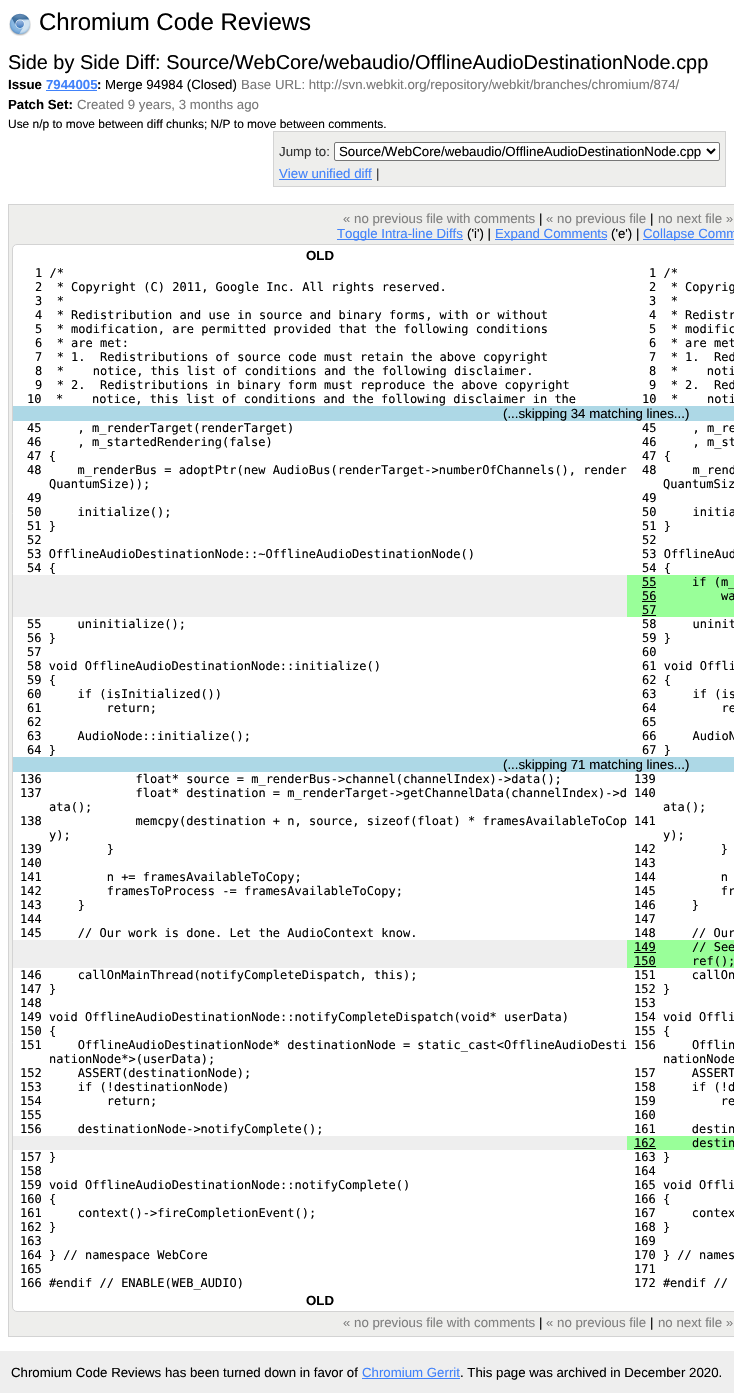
#include "include/core/SkBlurTypes.h"
#include "include/core/SkCanvas.h"
#include "include/core/SkData.h"
#include "include/core/SkFont.h"
#include "include/core/SkFontMgr.h"
#include "include/core/SkImage.h"
#include "include/core/SkMaskFilter.h"
#include "include/core/SkPaint.h"
#include "include/core/SkPathBuilder.h"
#include "include/core/SkTextBlob.h"
#include "include/effects/SkDashPathEffect.h"
#include "include/effects/SkGradientShader.h"
#include "include/utils/SkParsePath.h"

extern sk_sp<SkFontMgr> fontMgr;

static SkFont font(const char* family, int weight, float size, bool italic = false) {
    SkFontStyle style(weight, SkFontStyle::kNormal_Width,
        italic ? SkFontStyle::kItalic_Slant : SkFontStyle::kUpright_Slant);
    SkFont result(fontMgr->matchFamilyStyle(family, style), size);
    result.setSubpixel(true);
    return result;
}

static void drawLabel(SkCanvas* canvas, const char* s, float x, float y, const SkFont& font, SkColor color) {
    SkPaint ink(SkColor4f::FromColor(color));
    ink.setAntiAlias(true);
    canvas->drawString(s, x, y, font, ink);
}

static void fillRect(SkCanvas* canvas, float x, float y, float w, float h, SkColor color) {
    SkPaint ink(SkColor4f::FromColor(color));
    ink.setAntiAlias(true);
    canvas->drawRect(SkRect::MakeXYWH(x, y, w, h), ink);
}

static void drawPhoto(SkCanvas* canvas, const char* path, float x, float y, float w, float h) {
    auto image = SkImages::DeferredFromEncodedData(SkData::MakeFromFileName(path));
    canvas->drawImageRect(image, SkRect::MakeXYWH(x, y, w, h), SkSamplingOptions());
}

static SkPath parsePath(const char* data, bool evenOdd = false) {
    SkPath result = *SkParsePath::FromSVGString(data);
    if (evenOdd) result.setFillType(SkPathFillType::kEvenOdd);
    return result;
}

void draw(SkCanvas* canvas) {
    SkPaint paint;
    paint.setAntiAlias(true);
    canvas->clear(0xFFFFFFFF);
    drawPhoto(canvas, "assets/img1.png", 9, 13, 22, 23);
    SkFont font1 = font("Liberation Sans", 400, 24);
    drawLabel(canvas, "Chromium Code Reviews", 39, 30, font1, 0xFF000000);
    SkFont font2 = font("Liberation Sans", 400, 19.9f);
    drawLabel(canvas, "Side by Side Diff: Source/WebCore/webaudio/OfflineAudioDestinationNode.cpp", 8, 69, font2, 0xFF000000);
    SkFont font3 = font("Liberation Sans", 700, 13.25f);
    drawLabel(canvas, "Issue", 8, 89, font3, 0xFF000000);
    drawLabel(canvas, "7944005", 46, 89, font3, 0xFF4182FA);
    drawLabel(canvas, ":", 97, 89, font3, 0xFF000000);
    fillRect(canvas, 46, 90, 51, 1, 0xFF4182FA);
    SkFont font4 = font("Liberation Sans", 400, 13.25f);
    drawLabel(canvas, "Merge 94984 (Closed)", 105, 89, font4, 0xFF000000);
    drawLabel(canvas, "Base URL: http://svn.webkit.org/repository/webkit/branches/chromium/874/", 241, 89, font4, 0xFF777777);
    drawLabel(canvas, "Patch Set:", 8, 109, font3, 0xFF000000);
    drawLabel(canvas, "Created 9 years, 3 months ago", 77, 109, font4, 0xFF777777);
    SkFont font5 = font("Liberation Sans", 400, 11.95f);
    drawLabel(canvas, "Use n/p to move between diff chunks; N/P to move between comments.", 8, 128, font5, 0xFF000000);
    paint.setColor(0xFFEEEEEC);
    canvas->drawRect(SkRect::MakeXYWH(273.5f, 131.5f, 452, 55), paint);
    paint.setStroke(true);
    paint.setStrokeWidth(1);
    paint.setColor(0xFFD3D3D3);
    canvas->drawRect(SkRect::MakeXYWH(273.5f, 131.5f, 452, 55), paint);
    drawLabel(canvas, "Jump to:", 279, 156, font4, 0xFF333333);
    paint.setStroke(false);
    paint.setColor(0xFFFFFFFF);
    canvas->drawRoundRect(SkRect::MakeXYWH(334.5f, 142.5f, 385, 18), 1.5f, 1.5f, paint);
    paint.setStroke(true);
    paint.setColor(0xFF767676);
    canvas->drawRoundRect(SkRect::MakeXYWH(334.5f, 142.5f, 385, 18), 1.5f, 1.5f, paint);
    paint.setStrokeWidth(2);
    paint.setColor(0xFF000000);
    canvas->drawPath(parsePath("M707 149L711 153L715 149"), paint);
    SkFont font6 = font("Liberation Sans", 400, 13.3f);
    drawLabel(canvas, "Source/WebCore/webaudio/OfflineAudioDestinationNode.cpp", 339, 156, font6, 0xFF000000);
    drawLabel(canvas, "View unified diff", 279, 178, font4, 0xFF4182FA);
    fillRect(canvas, 279, 179, 93, 1, 0xFF4182FA);
    drawLabel(canvas, "|", 376, 178, font4, 0xFF333333);
    paint.setStroke(false);
    paint.setColor(0xFFEEEEEC);
    canvas->drawRect(SkRect::MakeXYWH(8.5f, 204.5f, 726, 1132), paint);
    paint.setStroke(true);
    paint.setStrokeWidth(1);
    paint.setColor(0xFFD3D3D3);
    canvas->drawRect(SkRect::MakeXYWH(8.5f, 204.5f, 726, 1132), paint);
    drawLabel(canvas, "« no previous file with comments", 343, 223, font4, 0xFF808080);
    drawLabel(canvas, "|", 539, 223, font4, 0xFF000000);
    drawLabel(canvas, "« no previous file", 546, 223, font4, 0xFF808080);
    drawLabel(canvas, "|", 650, 223, font4, 0xFF000000);
    drawLabel(canvas, "no next file »", 658, 223, font4, 0xFF808080);
    fillRect(canvas, 337, 239, 126, 1, 0xFF4182FA);
    drawLabel(canvas, "Toggle Intra-line Diffs", 337, 238, font4, 0xFF4182FA);
    drawLabel(canvas, "('i') |", 467, 238, font4, 0xFF000000);
    fillRect(canvas, 495, 239, 112, 1, 0xFF4182FA);
    drawLabel(canvas, "Expand Comments", 495, 238, font4, 0xFF4182FA);
    drawLabel(canvas, "('e') |", 611, 238, font4, 0xFF000000);
    fillRect(canvas, 643, 239, 91, 1, 0xFF4182FA);
    drawLabel(canvas, "Collapse Comm", 643, 238, font4, 0xFF4182FA);
    paint.setStroke(false);
    paint.setColor(0xFFFFFFFF);
    canvas->drawRoundRect(SkRect::MakeXYWH(12.5f, 244.5f, 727, 1067), 4.5f, 4.5f, paint);
    paint.setStroke(true);
    paint.setColor(0xFFD3D3D3);
    canvas->drawRoundRect(SkRect::MakeXYWH(12.5f, 244.5f, 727, 1067), 4.5f, 4.5f, paint);
    drawLabel(canvas, "OLD", 306, 260, font3, 0xFF000000);
    SkFont font7 = font("DejaVu Sans Mono", 400, 12);
    drawLabel(canvas, "1 /*", 35, 277, font7, 0xFF000000);
    drawLabel(canvas, "1 /*", 649, 277, font7, 0xFF000000);
    drawLabel(canvas, "2  * Copyright (C) 2011, Google Inc. All rights reserved.", 35, 291, font7, 0xFF000000);
    drawLabel(canvas, "2  * Copyrig", 649, 291, font7, 0xFF000000);
    drawLabel(canvas, "3  *", 35, 305, font7, 0xFF000000);
    drawLabel(canvas, "3  *", 649, 305, font7, 0xFF000000);
    drawLabel(canvas, "4  * Redistribution and use in source and binary forms, with or without", 35, 319, font7, 0xFF000000);
    drawLabel(canvas, "4  * Redistr", 649, 319, font7, 0xFF000000);
    drawLabel(canvas, "5  * modification, are permitted provided that the following conditions", 35, 333, font7, 0xFF000000);
    drawLabel(canvas, "5  * modific", 649, 333, font7, 0xFF000000);
    drawLabel(canvas, "6  * are met:", 35, 347, font7, 0xFF000000);
    drawLabel(canvas, "6  * are met", 649, 347, font7, 0xFF000000);
    drawLabel(canvas, "7  * 1.  Redistributions of source code must retain the above copyright", 35, 361, font7, 0xFF000000);
    drawLabel(canvas, "7  * 1.  Red", 649, 361, font7, 0xFF000000);
    drawLabel(canvas, "8  *    notice, this list of conditions and the following disclaimer.", 35, 375, font7, 0xFF000000);
    drawLabel(canvas, "8  *    noti", 649, 375, font7, 0xFF000000);
    drawLabel(canvas, "9  * 2.  Redistributions in binary form must reproduce the above copyright", 35, 389, font7, 0xFF000000);
    drawLabel(canvas, "9  * 2.  Red", 649, 389, font7, 0xFF000000);
    drawLabel(canvas, "10  *    notice, this list of conditions and the following disclaimer in the", 27, 403, font7, 0xFF000000);
    drawLabel(canvas, "10  *    noti", 642, 403, font7, 0xFF000000);
    fillRect(canvas, 13, 406, 721, 15, 0xFFADD8E6);
    drawLabel(canvas, "(...skipping 34 matching lines...)", 503, 418, font4, 0xFF000000);
    drawLabel(canvas, "45     , m_renderTarget(renderTarget)", 27, 432, font7, 0xFF000000);
    drawLabel(canvas, "45     , m_re", 642, 432, font7, 0xFF000000);
    drawLabel(canvas, "46     , m_startedRendering(false)", 27, 446, font7, 0xFF000000);
    drawLabel(canvas, "46     , m_st", 642, 446, font7, 0xFF000000);
    drawLabel(canvas, "47 {", 27, 460, font7, 0xFF000000);
    drawLabel(canvas, "47 {", 642, 460, font7, 0xFF000000);
    drawLabel(canvas, "48     m_renderBus = adoptPtr(new AudioBus(renderTarget->numberOfChannels(), render", 27, 474, font7, 0xFF000000);
    drawLabel(canvas, "QuantumSize));", 49, 488, font7, 0xFF000000);
    drawLabel(canvas, "48     m_rend", 642, 474, font7, 0xFF000000);
    drawLabel(canvas, "QuantumSiz", 663, 488, font7, 0xFF000000);
    drawLabel(canvas, "49", 27, 502, font7, 0xFF000000);
    drawLabel(canvas, "49", 642, 502, font7, 0xFF000000);
    drawLabel(canvas, "50     initialize();", 27, 516, font7, 0xFF000000);
    drawLabel(canvas, "50     initia", 642, 516, font7, 0xFF000000);
    drawLabel(canvas, "51 }", 27, 530, font7, 0xFF000000);
    drawLabel(canvas, "51 }", 642, 530, font7, 0xFF000000);
    drawLabel(canvas, "52", 27, 544, font7, 0xFF000000);
    drawLabel(canvas, "52", 642, 544, font7, 0xFF000000);
    drawLabel(canvas, "53 OfflineAudioDestinationNode::~OfflineAudioDestinationNode()", 27, 558, font7, 0xFF000000);
    drawLabel(canvas, "53 OfflineAud", 642, 558, font7, 0xFF000000);
    drawLabel(canvas, "54 {", 27, 572, font7, 0xFF000000);
    drawLabel(canvas, "54 {", 642, 572, font7, 0xFF000000);
    fillRect(canvas, 13, 575, 614, 42, 0xFFEEEEEE);
    fillRect(canvas, 627, 575, 107, 42, 0xFF99FF99);
    drawLabel(canvas, "55", 642, 586, font7, 0xFF000000);
    fillRect(canvas, 642, 587, 14, 1, 0xFF000000);
    drawLabel(canvas, "if (m_", 692, 586, font7, 0xFF000000);
    drawLabel(canvas, "56", 642, 600, font7, 0xFF000000);
    fillRect(canvas, 642, 601, 14, 1, 0xFF000000);
    drawLabel(canvas, "wa", 721, 600, font7, 0xFF000000);
    drawLabel(canvas, "57", 642, 614, font7, 0xFF000000);
    fillRect(canvas, 642, 615, 14, 1, 0xFF000000);
    drawLabel(canvas, "55     uninitialize();", 27, 628, font7, 0xFF000000);
    drawLabel(canvas, "58     uninit", 642, 628, font7, 0xFF000000);
    drawLabel(canvas, "56 }", 27, 642, font7, 0xFF000000);
    drawLabel(canvas, "59 }", 642, 642, font7, 0xFF000000);
    drawLabel(canvas, "57", 27, 656, font7, 0xFF000000);
    drawLabel(canvas, "60", 642, 656, font7, 0xFF000000);
    drawLabel(canvas, "58 void OfflineAudioDestinationNode::initialize()", 27, 670, font7, 0xFF000000);
    drawLabel(canvas, "61 void Offli", 642, 670, font7, 0xFF000000);
    drawLabel(canvas, "59 {", 27, 684, font7, 0xFF000000);
    drawLabel(canvas, "62 {", 642, 684, font7, 0xFF000000);
    drawLabel(canvas, "60     if (isInitialized())", 27, 698, font7, 0xFF000000);
    drawLabel(canvas, "63     if (is", 642, 698, font7, 0xFF000000);
    drawLabel(canvas, "61         return;", 27, 712, font7, 0xFF000000);
    drawLabel(canvas, "64         re", 642, 712, font7, 0xFF000000);
    drawLabel(canvas, "62", 27, 726, font7, 0xFF000000);
    drawLabel(canvas, "65", 642, 726, font7, 0xFF000000);
    drawLabel(canvas, "63     AudioNode::initialize();", 27, 740, font7, 0xFF000000);
    drawLabel(canvas, "66     AudioN", 642, 740, font7, 0xFF000000);
    drawLabel(canvas, "64 }", 27, 754, font7, 0xFF000000);
    drawLabel(canvas, "67 }", 642, 754, font7, 0xFF000000);
    fillRect(canvas, 13, 757, 721, 15, 0xFFADD8E6);
    drawLabel(canvas, "(...skipping 71 matching lines...)", 503, 769, font4, 0xFF000000);
    drawLabel(canvas, "136             float* source = m_renderBus->channel(channelIndex)->data();", 20, 783, font7, 0xFF000000);
    drawLabel(canvas, "139", 634, 783, font7, 0xFF000000);
    drawLabel(canvas, "137             float* destination = m_renderTarget->getChannelData(channelIndex)->d 140", 20, 797, font7, 0xFF000000);
    drawLabel(canvas, "ata();", 49, 811, font7, 0xFF000000);
    drawLabel(canvas, "ata();", 663, 811, font7, 0xFF000000);
    drawLabel(canvas, "138             memcpy(destination + n, source, sizeof(float) * framesAvailableToCop 141", 20, 825, font7, 0xFF000000);
    drawLabel(canvas, "y);", 49, 839, font7, 0xFF000000);
    drawLabel(canvas, "y);", 663, 839, font7, 0xFF000000);
    drawLabel(canvas, "139         }", 20, 853, font7, 0xFF000000);
    drawLabel(canvas, "142         }", 634, 853, font7, 0xFF000000);
    drawLabel(canvas, "140", 20, 867, font7, 0xFF000000);
    drawLabel(canvas, "143", 634, 867, font7, 0xFF000000);
    drawLabel(canvas, "141         n += framesAvailableToCopy;", 20, 881, font7, 0xFF000000);
    drawLabel(canvas, "144         n", 634, 881, font7, 0xFF000000);
    drawLabel(canvas, "142         framesToProcess -= framesAvailableToCopy;", 20, 895, font7, 0xFF000000);
    drawLabel(canvas, "145         fr", 634, 895, font7, 0xFF000000);
    drawLabel(canvas, "143     }", 20, 909, font7, 0xFF000000);
    drawLabel(canvas, "146     }", 634, 909, font7, 0xFF000000);
    drawLabel(canvas, "144", 20, 923, font7, 0xFF000000);
    drawLabel(canvas, "147", 634, 923, font7, 0xFF000000);
    drawLabel(canvas, "145     // Our work is done. Let the AudioContext know.", 20, 937, font7, 0xFF000000);
    drawLabel(canvas, "148     // Our", 634, 937, font7, 0xFF000000);
    fillRect(canvas, 13, 940, 614, 28, 0xFFEEEEEE);
    fillRect(canvas, 627, 940, 107, 28, 0xFF99FF99);
    drawLabel(canvas, "149", 634, 951, font7, 0xFF000000);
    fillRect(canvas, 634, 952, 22, 1, 0xFF000000);
    drawLabel(canvas, "// See", 692, 951, font7, 0xFF000000);
    drawLabel(canvas, "150", 634, 965, font7, 0xFF000000);
    fillRect(canvas, 634, 966, 22, 1, 0xFF000000);
    drawLabel(canvas, "ref();", 692, 965, font7, 0xFF000000);
    drawLabel(canvas, "146     callOnMainThread(notifyCompleteDispatch, this);", 20, 979, font7, 0xFF000000);
    drawLabel(canvas, "151     callOn", 634, 979, font7, 0xFF000000);
    drawLabel(canvas, "147 }", 20, 993, font7, 0xFF000000);
    drawLabel(canvas, "152 }", 634, 993, font7, 0xFF000000);
    drawLabel(canvas, "148", 20, 1007, font7, 0xFF000000);
    drawLabel(canvas, "153", 634, 1007, font7, 0xFF000000);
    drawLabel(canvas, "149 void OfflineAudioDestinationNode::notifyCompleteDispatch(void* userData)", 20, 1021, font7, 0xFF000000);
    drawLabel(canvas, "154 void Offli", 634, 1021, font7, 0xFF000000);
    drawLabel(canvas, "150 {", 20, 1035, font7, 0xFF000000);
    drawLabel(canvas, "155 {", 634, 1035, font7, 0xFF000000);
    drawLabel(canvas, "151     OfflineAudioDestinationNode* destinationNode = static_cast<OfflineAudioDesti 156     Offlin", 20, 1049, font7, 0xFF000000);
    drawLabel(canvas, "nationNode*>(userData);", 49, 1063, font7, 0xFF000000);
    drawLabel(canvas, "nationNode", 663, 1063, font7, 0xFF000000);
    drawLabel(canvas, "152     ASSERT(destinationNode);", 20, 1077, font7, 0xFF000000);
    drawLabel(canvas, "157     ASSERT", 634, 1077, font7, 0xFF000000);
    drawLabel(canvas, "153     if (!destinationNode)", 20, 1091, font7, 0xFF000000);
    drawLabel(canvas, "158     if (!d", 634, 1091, font7, 0xFF000000);
    drawLabel(canvas, "154         return;", 20, 1105, font7, 0xFF000000);
    drawLabel(canvas, "159         re", 634, 1105, font7, 0xFF000000);
    drawLabel(canvas, "155", 20, 1119, font7, 0xFF000000);
    drawLabel(canvas, "160", 634, 1119, font7, 0xFF000000);
    drawLabel(canvas, "156     destinationNode->notifyComplete();", 20, 1133, font7, 0xFF000000);
    drawLabel(canvas, "161     destin", 634, 1133, font7, 0xFF000000);
    fillRect(canvas, 13, 1136, 614, 14, 0xFFEEEEEE);
    fillRect(canvas, 627, 1136, 107, 14, 0xFF99FF99);
    drawLabel(canvas, "162", 634, 1147, font7, 0xFF000000);
    fillRect(canvas, 634, 1148, 22, 1, 0xFF000000);
    drawLabel(canvas, "destin", 692, 1147, font7, 0xFF000000);
    drawLabel(canvas, "157 }", 20, 1161, font7, 0xFF000000);
    drawLabel(canvas, "163 }", 634, 1161, font7, 0xFF000000);
    drawLabel(canvas, "158", 20, 1175, font7, 0xFF000000);
    drawLabel(canvas, "164", 634, 1175, font7, 0xFF000000);
    drawLabel(canvas, "159 void OfflineAudioDestinationNode::notifyComplete()", 20, 1189, font7, 0xFF000000);
    drawLabel(canvas, "165 void Offli", 634, 1189, font7, 0xFF000000);
    drawLabel(canvas, "160 {", 20, 1203, font7, 0xFF000000);
    drawLabel(canvas, "166 {", 634, 1203, font7, 0xFF000000);
    drawLabel(canvas, "161     context()->fireCompletionEvent();", 20, 1217, font7, 0xFF000000);
    drawLabel(canvas, "167     contex", 634, 1217, font7, 0xFF000000);
    drawLabel(canvas, "162 }", 20, 1231, font7, 0xFF000000);
    drawLabel(canvas, "168 }", 634, 1231, font7, 0xFF000000);
    drawLabel(canvas, "163", 20, 1245, font7, 0xFF000000);
    drawLabel(canvas, "169", 634, 1245, font7, 0xFF000000);
    drawLabel(canvas, "164 } // namespace WebCore", 20, 1259, font7, 0xFF000000);
    drawLabel(canvas, "170 } // names", 634, 1259, font7, 0xFF000000);
    drawLabel(canvas, "165", 20, 1273, font7, 0xFF000000);
    drawLabel(canvas, "171", 634, 1273, font7, 0xFF000000);
    drawLabel(canvas, "166 #endif // ENABLE(WEB_AUDIO)", 20, 1287, font7, 0xFF000000);
    drawLabel(canvas, "172 #endif //", 634, 1287, font7, 0xFF000000);
    drawLabel(canvas, "OLD", 306, 1305, font3, 0xFF000000);
    drawLabel(canvas, "« no previous file with comments", 343, 1327, font4, 0xFF808080);
    drawLabel(canvas, "|", 539, 1327, font4, 0xFF000000);
    drawLabel(canvas, "« no previous file", 546, 1327, font4, 0xFF808080);
    drawLabel(canvas, "|", 650, 1327, font4, 0xFF000000);
    drawLabel(canvas, "no next file »", 658, 1327, font4, 0xFF808080);
    fillRect(canvas, 0, 1351, 734, 42, 0xFFEEEEEE);
    drawLabel(canvas, "Chromium Code Reviews has been turned down in favor of", 11, 1377, font4, 0xFF000000);
    drawLabel(canvas, "Chromium Gerrit", 362, 1377, font4, 0xFF4182FA);
    fillRect(canvas, 362, 1378, 98, 1, 0xFF4182FA);
    drawLabel(canvas, ". This page was archived in December 2020.", 460, 1377, font4, 0xFF000000);
}
